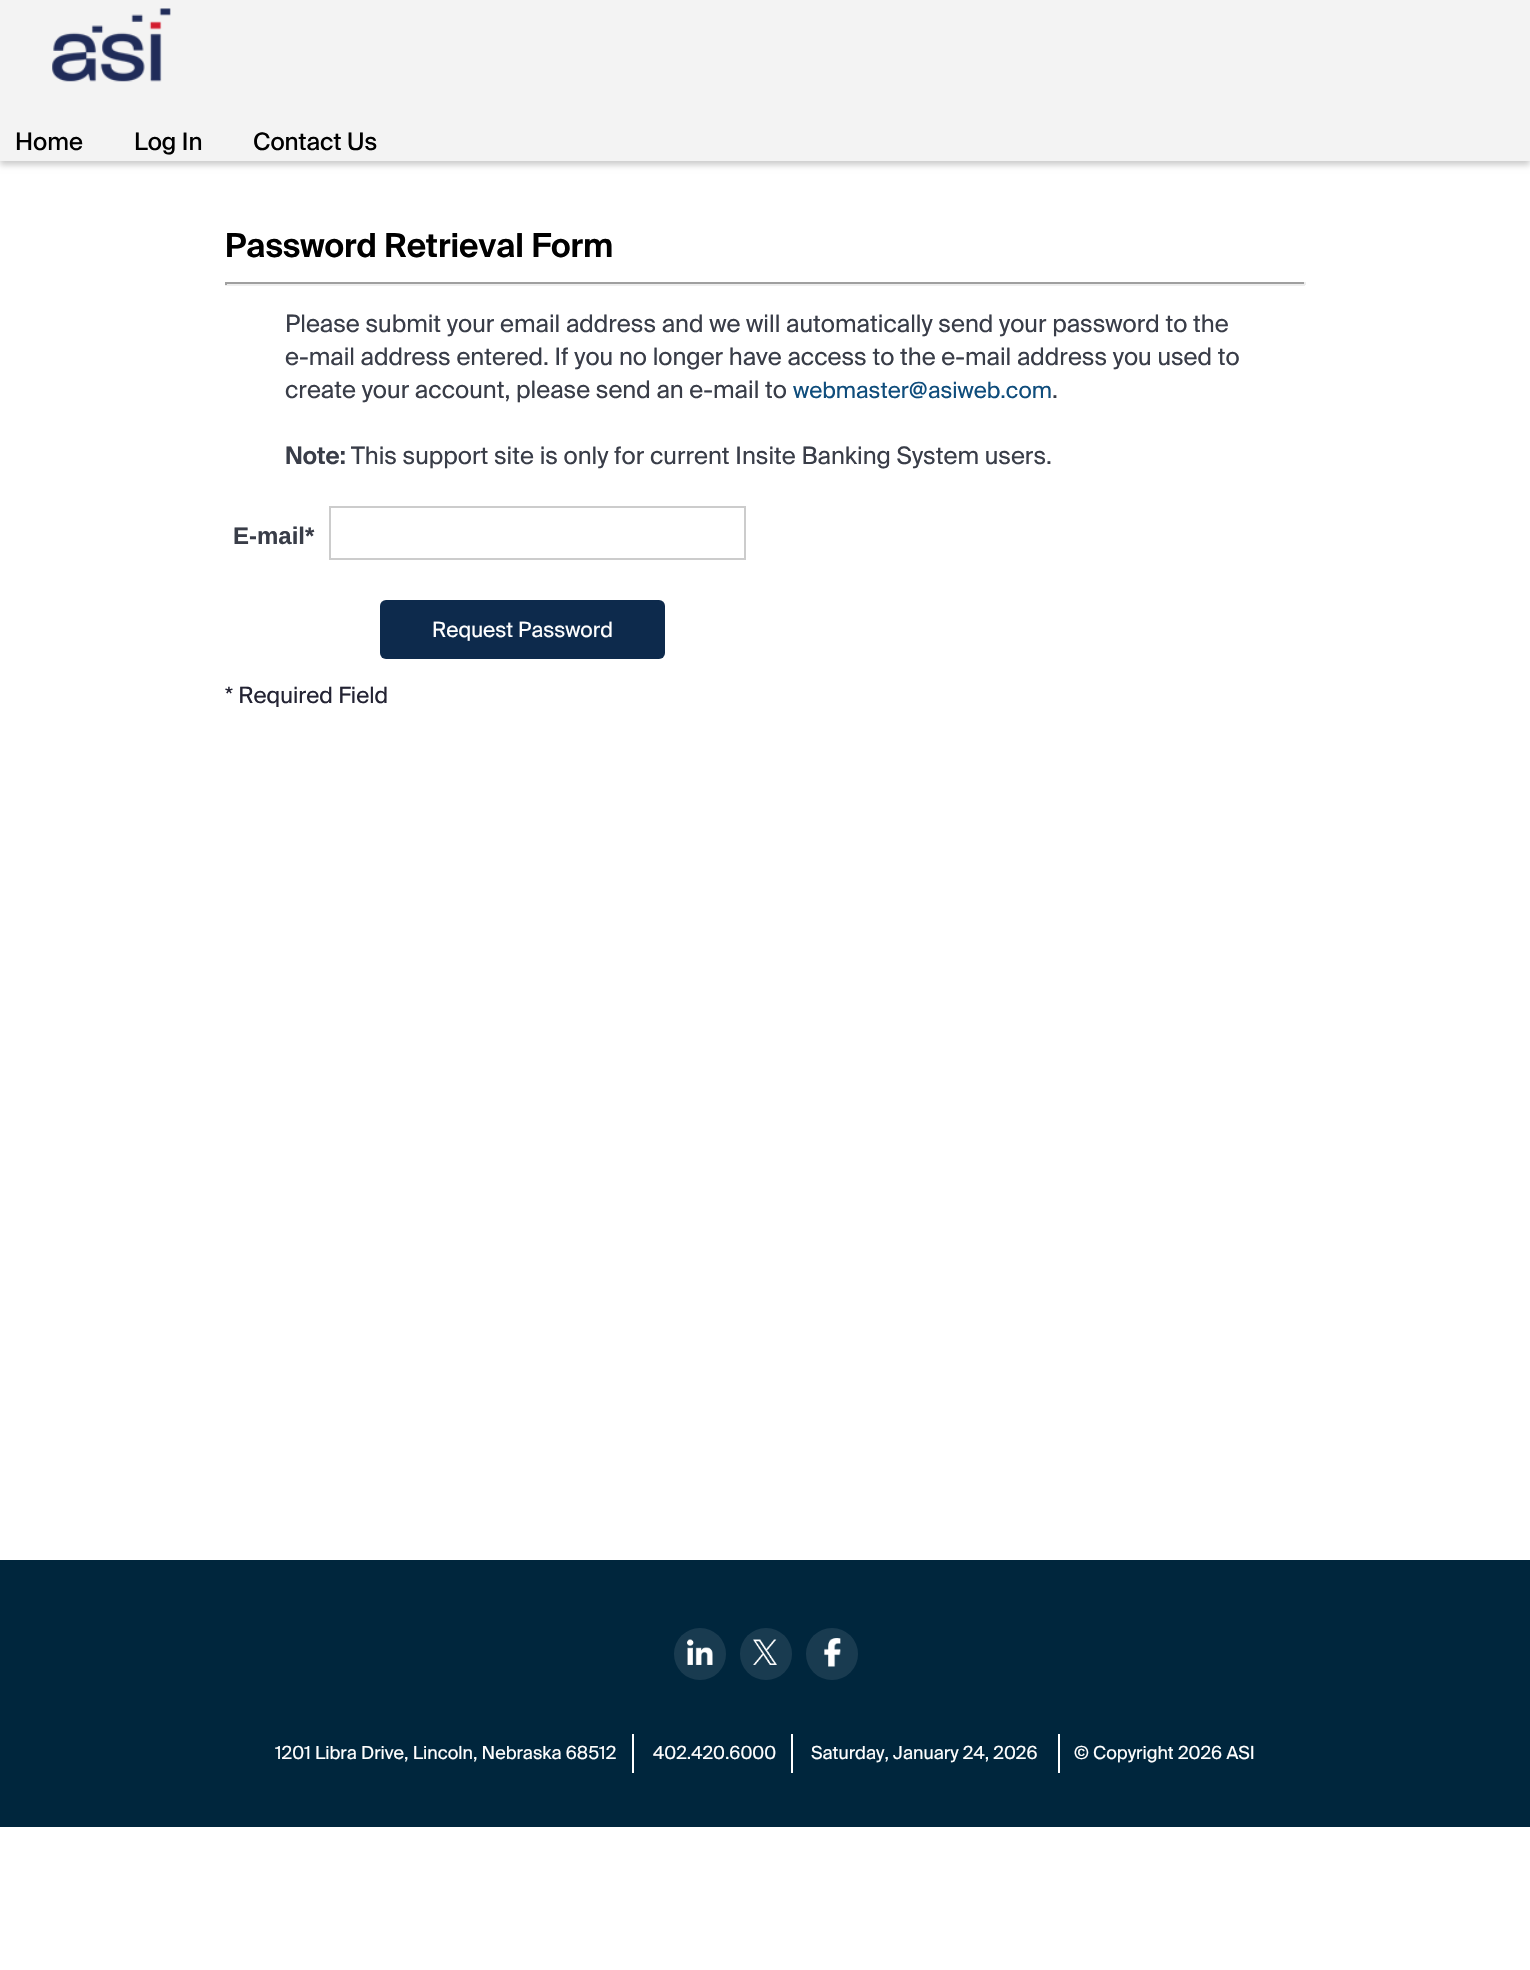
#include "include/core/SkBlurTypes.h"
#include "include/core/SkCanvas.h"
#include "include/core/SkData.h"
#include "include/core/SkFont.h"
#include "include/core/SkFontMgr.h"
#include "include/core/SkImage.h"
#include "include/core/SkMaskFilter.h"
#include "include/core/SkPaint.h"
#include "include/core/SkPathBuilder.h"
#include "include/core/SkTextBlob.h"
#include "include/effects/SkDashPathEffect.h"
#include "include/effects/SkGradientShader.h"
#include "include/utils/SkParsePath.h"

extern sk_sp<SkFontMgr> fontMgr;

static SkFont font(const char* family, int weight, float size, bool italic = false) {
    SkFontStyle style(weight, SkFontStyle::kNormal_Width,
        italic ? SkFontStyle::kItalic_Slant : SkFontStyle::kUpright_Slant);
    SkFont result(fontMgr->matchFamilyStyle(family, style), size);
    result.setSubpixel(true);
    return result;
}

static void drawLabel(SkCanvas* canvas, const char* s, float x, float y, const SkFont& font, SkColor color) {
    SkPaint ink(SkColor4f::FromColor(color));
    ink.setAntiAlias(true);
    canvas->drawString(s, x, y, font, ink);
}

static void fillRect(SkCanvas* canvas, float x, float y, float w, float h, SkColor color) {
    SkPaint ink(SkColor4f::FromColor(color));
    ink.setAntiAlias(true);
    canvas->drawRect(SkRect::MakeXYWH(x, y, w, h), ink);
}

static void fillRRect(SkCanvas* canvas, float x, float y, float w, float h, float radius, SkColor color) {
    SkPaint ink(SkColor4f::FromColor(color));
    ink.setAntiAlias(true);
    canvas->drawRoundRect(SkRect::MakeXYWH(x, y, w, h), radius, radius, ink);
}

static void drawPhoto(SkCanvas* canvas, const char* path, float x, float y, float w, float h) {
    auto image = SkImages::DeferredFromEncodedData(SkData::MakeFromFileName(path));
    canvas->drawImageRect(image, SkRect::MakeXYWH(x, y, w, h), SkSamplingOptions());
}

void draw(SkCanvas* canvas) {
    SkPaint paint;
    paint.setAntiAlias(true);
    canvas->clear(0xFFFFFFFF);
    paint.setColor(0x33000000);
    paint.setMaskFilter(SkMaskFilter::MakeBlur(kNormal_SkBlurStyle, 3));
    canvas->drawRect(SkRect::MakeXYWH(0, 5, 1530, 160), paint);
    paint.setMaskFilter(nullptr);
    fillRect(canvas, 0, 0, 1530, 161, 0xFFF3F3F3);
    drawPhoto(canvas, "assets/img1.png", 52, 8, 119, 74);
    SkFont font1 = font("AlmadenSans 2", 400, 24);
    drawLabel(canvas, "Home", 15, 150, font1, 0xFF000000);
    drawLabel(canvas, "Log In", 134, 150, font1, 0xFF000000);
    drawLabel(canvas, "Contact Us", 253, 150, font1, 0xFF000000);
    SkFont font2 = font("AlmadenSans", 600, 33);
    drawLabel(canvas, "Password Retrieval Form", 225, 257, font2, 0xFF000000);
    fillRect(canvas, 225, 282, 1080, 2, 0xFF9F9F9F);
    fillRect(canvas, 1304, 282, 2, 3, 0xFFEEEEEE);
    fillRect(canvas, 225, 284, 1080, 2, 0xFFEEEEEE);
    fillRect(canvas, 225, 282, 2, 3, 0xFF9F9F9F);
    SkFont font3 = font("AlmadenSans", 400, 24);
    drawLabel(canvas, "Please submit your email address and we will automatically send your password to the", 285, 332, font3, 0xFF393D48);
    drawLabel(canvas, "e-mail address entered. If you no longer have access to the e-mail address you used to", 285, 365, font3, 0xFF393D48);
    drawLabel(canvas, "create your account, please send an e-mail to", 285, 398, font3, 0xFF393D48);
    SkFont font4 = font("AlmadenSans", 400, 22.5f);
    drawLabel(canvas, "webmaster@asiweb.com", 793, 398, font4, 0xFF0F4D7C);
    drawLabel(canvas, ".", 1052, 398, font3, 0xFF393D48);
    SkFont font5 = font("AlmadenSans", 600, 24);
    drawLabel(canvas, "Note:", 285, 464, font5, 0xFF393D48);
    drawLabel(canvas, "This support site is only for current Insite Banking System users.", 351, 464, font3, 0xFF393D48);
    SkFont font6 = font("Liberation Sans", 700, 24);
    drawLabel(canvas, "E-mail*", 233, 544, font6, 0xFF393D48);
    paint.setStroke(true);
    paint.setStrokeWidth(2);
    paint.setColor(0xFFCCCCCC);
    canvas->drawRect(SkRect::MakeXYWH(330, 507, 415, 52), paint);
    fillRRect(canvas, 380, 600, 285, 59, 6, 0xFF0D2A4C);
    SkFont font7 = font("AlmadenSans", 400, 21);
    drawLabel(canvas, "Request Password", 432, 637, font7, 0xFFFFFFFF);
    drawLabel(canvas, "* Required Field", 225, 703, font4, 0xFF232333);
    fillRect(canvas, 0, 1560, 1530, 267, 0xFF00263D);
    paint.setStroke(false);
    paint.setColor(0xFF193B50);
    canvas->drawCircle(700, 1654, 26, paint);
    drawPhoto(canvas, "assets/img2.png", 687, 1639, 26, 26);
    canvas->drawCircle(766, 1654, 26, paint);
    drawPhoto(canvas, "assets/img3.png", 753, 1639, 24, 26);
    canvas->drawCircle(832, 1654, 26, paint);
    drawPhoto(canvas, "assets/img4.png", 824, 1638, 17, 29);
    SkFont font8 = font("AlmadenSans", 400, 18);
    drawLabel(canvas, "1201 Libra Drive, Lincoln, Nebraska 68512", 275, 1759, font8, 0xFFFFFFFF);
    fillRect(canvas, 632, 1734, 2, 39, 0xFFFFFFFF);
    drawLabel(canvas, "402.420.6000", 653, 1759, font8, 0xFFFFFFFF);
    fillRect(canvas, 791, 1734, 2, 39, 0xFFFFFFFF);
    drawLabel(canvas, "Saturday, January 24, 2026", 811, 1759, font8, 0xFFFFFFFF);
    fillRect(canvas, 1058, 1734, 2, 39, 0xFFFFFFFF);
    drawLabel(canvas, "© Copyright 2026 ASI", 1074, 1759, font8, 0xFFFFFFFF);
}
